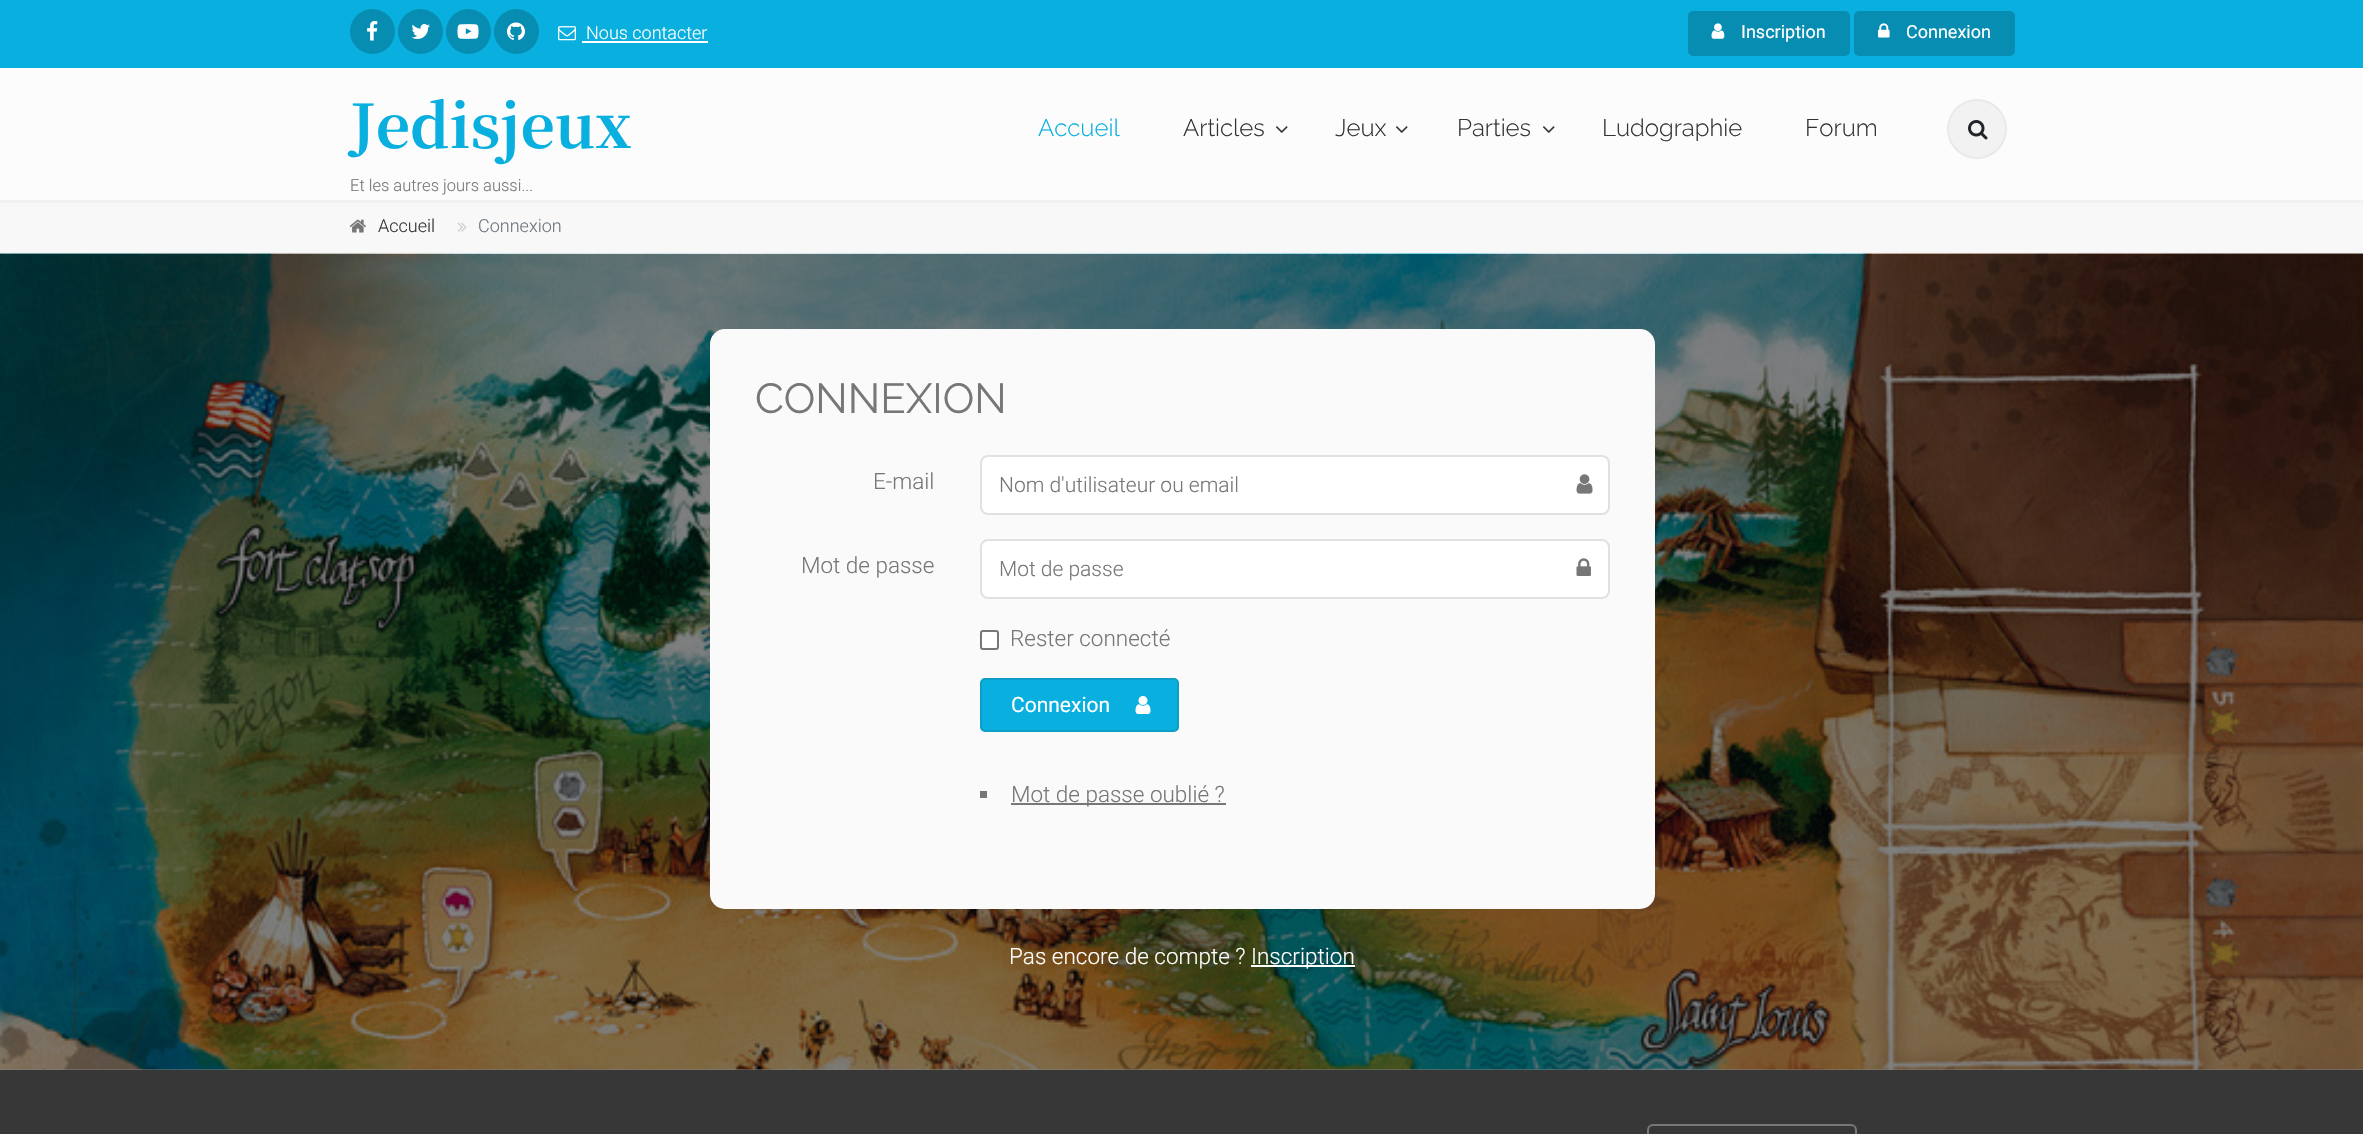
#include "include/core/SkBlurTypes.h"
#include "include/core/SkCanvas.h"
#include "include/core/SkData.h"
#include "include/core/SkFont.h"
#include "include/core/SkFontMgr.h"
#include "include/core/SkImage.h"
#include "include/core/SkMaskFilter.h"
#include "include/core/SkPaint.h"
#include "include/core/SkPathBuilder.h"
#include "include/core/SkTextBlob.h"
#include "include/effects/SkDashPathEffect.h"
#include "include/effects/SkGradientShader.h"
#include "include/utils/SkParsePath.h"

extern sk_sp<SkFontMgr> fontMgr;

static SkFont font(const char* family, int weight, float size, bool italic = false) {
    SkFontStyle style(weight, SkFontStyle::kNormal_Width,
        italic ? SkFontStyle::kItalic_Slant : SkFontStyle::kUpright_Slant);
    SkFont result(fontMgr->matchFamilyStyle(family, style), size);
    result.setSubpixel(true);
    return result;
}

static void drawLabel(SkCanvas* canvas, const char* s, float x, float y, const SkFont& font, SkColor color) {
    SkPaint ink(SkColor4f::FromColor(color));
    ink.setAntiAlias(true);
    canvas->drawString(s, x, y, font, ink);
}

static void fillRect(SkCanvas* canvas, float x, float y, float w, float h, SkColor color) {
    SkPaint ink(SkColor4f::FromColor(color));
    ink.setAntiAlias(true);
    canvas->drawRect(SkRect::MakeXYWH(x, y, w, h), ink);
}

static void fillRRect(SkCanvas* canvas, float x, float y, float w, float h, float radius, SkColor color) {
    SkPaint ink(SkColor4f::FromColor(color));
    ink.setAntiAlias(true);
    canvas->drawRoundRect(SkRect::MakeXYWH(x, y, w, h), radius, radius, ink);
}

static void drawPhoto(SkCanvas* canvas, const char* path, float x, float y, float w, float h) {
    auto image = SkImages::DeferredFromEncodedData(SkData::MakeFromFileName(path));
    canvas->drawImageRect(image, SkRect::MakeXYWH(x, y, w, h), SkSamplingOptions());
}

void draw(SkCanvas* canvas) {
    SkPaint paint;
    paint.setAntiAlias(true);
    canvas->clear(0xFF808080);
    fillRect(canvas, 0, 0, 2363, 68, 0xFF09AFDF);
    paint.setColor(0xFF078CB2);
    canvas->drawCircle(372.5f, 31.5f, 22.5f, paint);
    drawPhoto(canvas, "assets/img1.png", 367, 21, 11, 20);
    canvas->drawCircle(420.5f, 31.5f, 22.5f, paint);
    drawPhoto(canvas, "assets/img2.png", 411, 24, 19, 15);
    canvas->drawCircle(468.5f, 31.5f, 22.5f, paint);
    drawPhoto(canvas, "assets/img3.png", 457, 24, 22, 15);
    canvas->drawCircle(516.5f, 31.5f, 22.5f, paint);
    drawPhoto(canvas, "assets/img4.png", 507, 22, 18, 18);
    drawPhoto(canvas, "assets/img5.png", 558, 26, 18, 15);
    SkFont font1 = font("Roboto", 300, 18);
    drawLabel(canvas, "Nous contacter", 586, 39, font1, 0xFFFFFFFF);
    fillRect(canvas, 582, 41, 126, 2, 0xFFFFFFFF);
    fillRRect(canvas, 1688, 11, 162, 45, 5, 0xFF078CB2);
    drawPhoto(canvas, "assets/img6.png", 1711, 23, 14, 16);
    SkFont font2 = font("Roboto", 400, 18);
    drawLabel(canvas, "Inscription", 1741, 38, font2, 0xFFFFFFFF);
    fillRRect(canvas, 1854, 11, 161, 45, 5, 0xFF078CB2);
    drawPhoto(canvas, "assets/img7.png", 1878, 23, 12, 15);
    drawLabel(canvas, "Connexion", 1906, 38, font2, 0xFFFFFFFF);
    fillRect(canvas, 0, 70, 2363, 130, 0xFFFCFCFC);
    fillRect(canvas, 0, 68, 2363, 2, 0xFFFFFFFF);
    fillRect(canvas, 0, 200, 2363, 3, 0xFFF1F1F1);
    SkFont font3 = font("Noto Serif JP", 200, 60);
    drawLabel(canvas, "Jedisjeux", 350, 148, font3, 0xFF09AFDF);
    SkFont font4 = font("Roboto", 300, 16.5f);
    drawLabel(canvas, "Et les autres jours aussi...", 350, 191, font4, 0xFF777777);
    SkFont font5 = font("Raleway", 300, 24);
    drawLabel(canvas, "Accueil", 1038, 136, font5, 0xFF09AFDF);
    drawLabel(canvas, "Articles", 1183, 136, font5, 0xFF333333);
    drawPhoto(canvas, "assets/img8.png", 1276, 126, 12, 7);
    drawLabel(canvas, "Jeux", 1335, 136, font5, 0xFF333333);
    drawPhoto(canvas, "assets/img8.png", 1396, 126, 12, 7);
    drawLabel(canvas, "Parties", 1457, 136, font5, 0xFF333333);
    drawPhoto(canvas, "assets/img8.png", 1543, 126, 12, 7);
    drawLabel(canvas, "Ludographie", 1602, 136, font5, 0xFF333333);
    drawLabel(canvas, "Forum", 1805, 136, font5, 0xFF333333);
    paint.setColor(0xFFF2F2F2);
    canvas->drawCircle(1977, 129, 29, paint);
    paint.setStroke(true);
    paint.setStrokeWidth(2);
    paint.setColor(0xFFE9E9E9);
    canvas->drawCircle(1977, 129, 29, paint);
    drawPhoto(canvas, "assets/img9.png", 1968, 120, 20, 20);
    fillRect(canvas, 0, 203, 2363, 49, 0xFFF8F8F8);
    fillRect(canvas, 0, 252, 2363, 2, 0xFFF4F4F4);
    drawPhoto(canvas, "assets/img10.png", 349, 219, 17, 14);
    drawLabel(canvas, "Accueil", 378, 232, font1, 0xFF333333);
    drawPhoto(canvas, "assets/img11.png", 457, 222, 10, 10);
    drawLabel(canvas, "Connexion", 478, 232, font1, 0xFF6C757D);
    drawPhoto(canvas, "assets/img12.png", 0, 253, 2363, 817);
    fillRRect(canvas, 710, 329, 945, 580, 15, 0xFFFAFAFA);
    SkFont font6 = font("Raleway", 400, 42);
    drawLabel(canvas, "CONNEXION", 755, 413, font6, 0xFF777777);
    SkFont font7 = font("Roboto", 300, 22.5f);
    drawLabel(canvas, "E-mail", 873, 489, font7, 0xFF777777);
    paint.setStroke(false);
    paint.setColor(0xFFFFFFFF);
    canvas->drawRoundRect(SkRect::MakeXYWH(981, 456, 628, 58), 7, 7, paint);
    paint.setStroke(true);
    paint.setColor(0xFFE1E1E1);
    canvas->drawRoundRect(SkRect::MakeXYWH(981, 456, 628, 58), 7, 7, paint);
    SkFont font8 = font("Roboto", 300, 21);
    drawLabel(canvas, "Nom d'utilisateur ou email", 999, 492, font8, 0xFF777777);
    drawPhoto(canvas, "assets/img13.png", 1576, 474, 17, 20);
    drawLabel(canvas, "Mot de passe", 801, 573, font7, 0xFF777777);
    paint.setStroke(false);
    paint.setColor(0xFFFFFFFF);
    canvas->drawRoundRect(SkRect::MakeXYWH(981, 540, 628, 58), 7, 7, paint);
    paint.setStroke(true);
    paint.setColor(0xFFE1E1E1);
    canvas->drawRoundRect(SkRect::MakeXYWH(981, 540, 628, 58), 7, 7, paint);
    drawLabel(canvas, "Mot de passe", 999, 576, font8, 0xFF777777);
    drawPhoto(canvas, "assets/img14.png", 1576, 558, 15, 18);
    paint.setStroke(false);
    paint.setColor(0xFFFFFFFF);
    canvas->drawRoundRect(SkRect::MakeXYWH(981, 631, 17, 18), 2, 2, paint);
    paint.setStroke(true);
    paint.setColor(0xFF767676);
    canvas->drawRoundRect(SkRect::MakeXYWH(981, 631, 17, 18), 2, 2, paint);
    drawLabel(canvas, "Rester connecté", 1010, 646, font7, 0xFF777777);
    paint.setStroke(false);
    paint.setColor(0xFF09AFDF);
    canvas->drawRoundRect(SkRect::MakeXYWH(981, 679, 197, 52), 4, 4, paint);
    paint.setStroke(true);
    paint.setColor(0xFF0C9EC7);
    canvas->drawRoundRect(SkRect::MakeXYWH(981, 679, 197, 52), 4, 4, paint);
    SkFont font9 = font("Roboto", 400, 21);
    drawLabel(canvas, "Connexion", 1011, 712, font9, 0xFFFFFFFF);
    drawPhoto(canvas, "assets/img15.png", 1135, 696, 16, 18);
    fillRect(canvas, 980, 791, 7, 7, 0xFF777777);
    fillRect(canvas, 1011, 803, 215, 2, 0xFF777777);
    drawLabel(canvas, "Mot de passe oublié ?", 1011, 802, font7, 0xFF777777);
    drawLabel(canvas, "Pas encore de compte ?", 1009, 964, font7, 0xFFFFFFFF);
    fillRect(canvas, 1251, 965, 104, 2, 0xFFFFFFFF);
    drawLabel(canvas, "Inscription", 1251, 964, font7, 0xFFFFFFFF);
    fillRect(canvas, 0, 1070, 2363, 64, 0xFF373737);
    paint.setColor(0xFF777777);
    canvas->drawRoundRect(SkRect::MakeXYWH(1648, 1125, 208, 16), 5, 5, paint);
}
